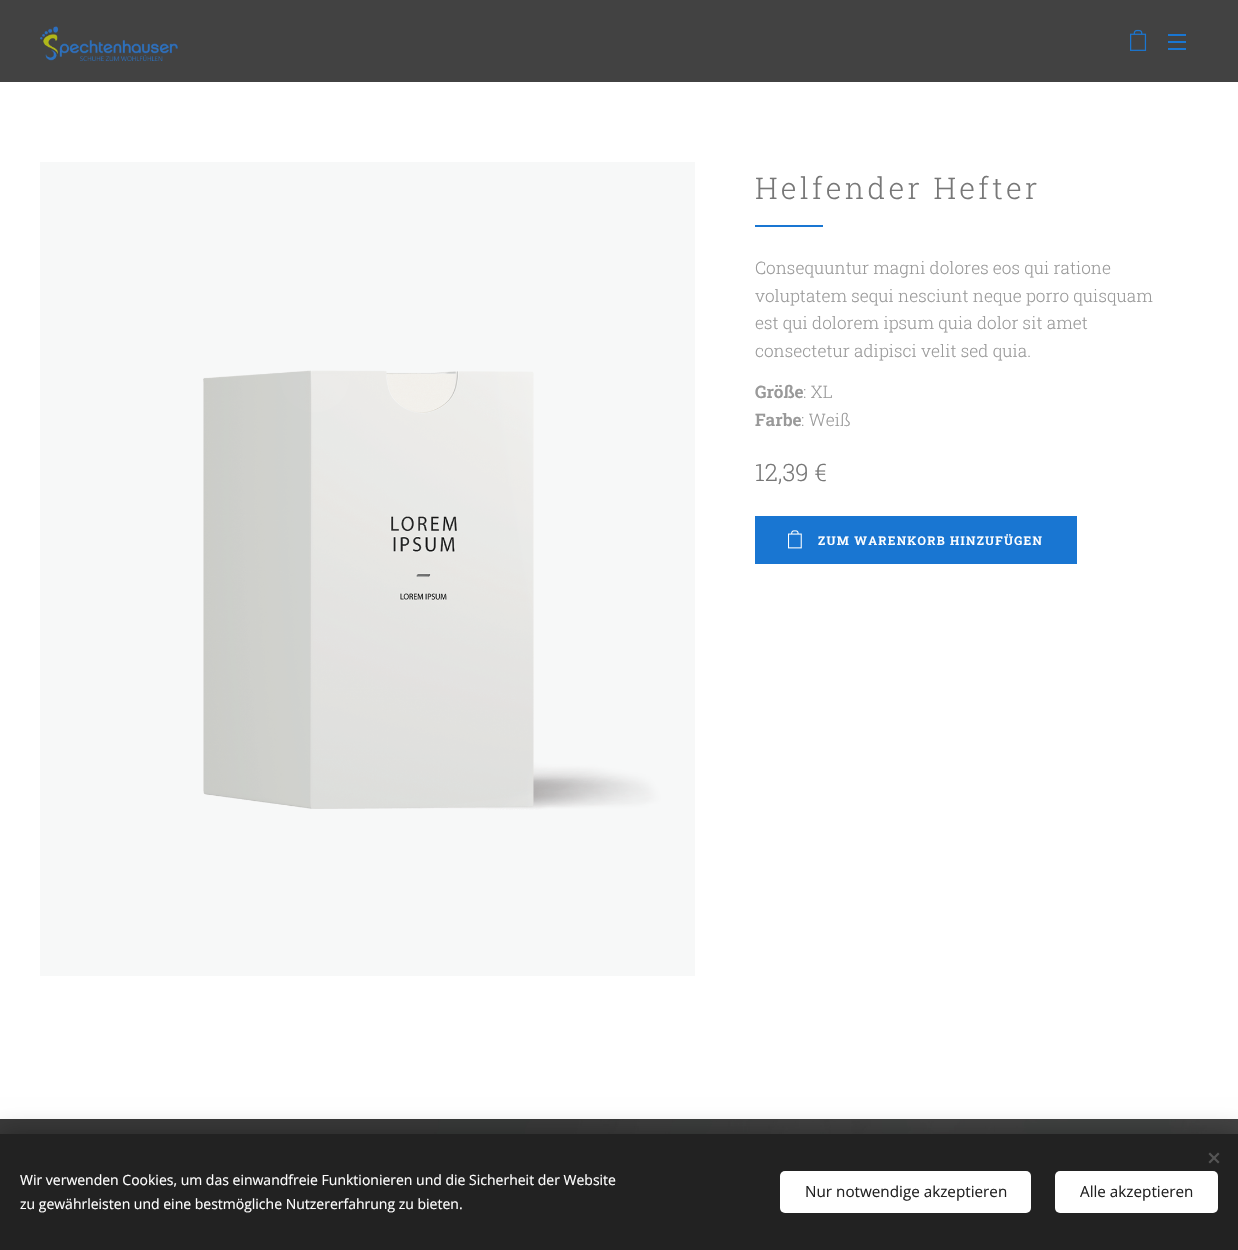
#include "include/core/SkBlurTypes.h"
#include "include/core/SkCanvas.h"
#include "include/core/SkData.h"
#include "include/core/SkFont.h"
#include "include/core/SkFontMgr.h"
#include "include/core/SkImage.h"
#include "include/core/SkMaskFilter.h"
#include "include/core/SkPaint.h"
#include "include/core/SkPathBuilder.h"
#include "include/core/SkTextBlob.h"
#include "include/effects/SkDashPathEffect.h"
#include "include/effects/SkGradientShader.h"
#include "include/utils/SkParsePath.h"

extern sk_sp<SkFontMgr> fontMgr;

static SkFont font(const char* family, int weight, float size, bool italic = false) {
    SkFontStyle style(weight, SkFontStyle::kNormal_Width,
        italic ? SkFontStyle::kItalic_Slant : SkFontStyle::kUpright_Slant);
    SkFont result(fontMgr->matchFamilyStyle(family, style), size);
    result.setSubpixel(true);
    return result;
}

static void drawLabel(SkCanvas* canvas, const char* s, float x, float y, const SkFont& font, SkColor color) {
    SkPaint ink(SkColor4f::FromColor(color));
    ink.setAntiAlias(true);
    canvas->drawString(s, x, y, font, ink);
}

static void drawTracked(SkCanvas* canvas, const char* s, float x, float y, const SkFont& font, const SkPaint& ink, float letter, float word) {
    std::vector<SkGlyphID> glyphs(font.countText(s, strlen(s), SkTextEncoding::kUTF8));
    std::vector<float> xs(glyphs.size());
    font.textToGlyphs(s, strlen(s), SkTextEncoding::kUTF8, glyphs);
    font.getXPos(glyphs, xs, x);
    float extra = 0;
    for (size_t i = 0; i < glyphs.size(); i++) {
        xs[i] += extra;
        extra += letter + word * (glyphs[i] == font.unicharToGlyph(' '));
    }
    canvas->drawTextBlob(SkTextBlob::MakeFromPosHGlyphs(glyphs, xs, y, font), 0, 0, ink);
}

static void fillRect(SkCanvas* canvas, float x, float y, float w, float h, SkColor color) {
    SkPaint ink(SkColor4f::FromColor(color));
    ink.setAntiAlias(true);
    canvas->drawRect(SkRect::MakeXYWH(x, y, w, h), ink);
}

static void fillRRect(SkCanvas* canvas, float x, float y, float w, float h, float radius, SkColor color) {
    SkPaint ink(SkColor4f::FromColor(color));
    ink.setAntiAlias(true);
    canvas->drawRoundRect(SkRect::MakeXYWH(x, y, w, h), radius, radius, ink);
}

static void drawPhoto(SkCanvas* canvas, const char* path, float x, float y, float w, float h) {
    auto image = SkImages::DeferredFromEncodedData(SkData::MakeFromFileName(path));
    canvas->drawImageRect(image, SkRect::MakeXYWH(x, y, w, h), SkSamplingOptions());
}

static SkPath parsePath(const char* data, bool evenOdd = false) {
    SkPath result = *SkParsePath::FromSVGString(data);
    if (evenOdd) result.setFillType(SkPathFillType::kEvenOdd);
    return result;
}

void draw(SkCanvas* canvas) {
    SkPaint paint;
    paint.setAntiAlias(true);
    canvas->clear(0xFFFFFFFF);
    fillRect(canvas, 0, 0, 1238, 82, 0xFF424242);
    drawPhoto(canvas, "assets/img1.png", 40, 26, 138, 35);
    drawPhoto(canvas, "assets/img2.png", 1130, 29, 17, 22);
    fillRect(canvas, 1168, 41, 18, 2, 0xFF1976D2);
    fillRect(canvas, 1168, 34, 18, 2, 0xFF1976D2);
    fillRect(canvas, 1168, 48, 18, 2, 0xFF1976D2);
    drawPhoto(canvas, "assets/img3.png", 40, 162, 655, 814);
    SkFont font1 = font("Roboto Slab", 300, 30);
    paint.setColor(0xFF777777);
    drawTracked(canvas, "Helfender Hefter", 755, 199, font1, paint, 3.25f, 0);
    fillRect(canvas, 755, 225, 68, 2, 0xFF1976D2);
    SkFont font2 = font("Roboto Slab", 300, 17.2f);
    drawLabel(canvas, "Consequuntur magni dolores eos qui ratione", 755, 274, font2, 0xFF999999);
    drawLabel(canvas, "voluptatem sequi nesciunt neque porro quisquam", 755, 302, font2, 0xFF999999);
    drawLabel(canvas, "est qui dolorem ipsum quia dolor sit amet", 755, 329, font2, 0xFF999999);
    drawLabel(canvas, "consectetur adipisci velit sed quia.", 755, 357, font2, 0xFF999999);
    SkFont font3 = font("Roboto Slab", 600, 17.2f);
    drawLabel(canvas, "Größe", 755, 398, font3, 0xFF999999);
    drawLabel(canvas, ": XL", 803, 398, font2, 0xFF999999);
    drawLabel(canvas, "Farbe", 755, 426, font3, 0xFF999999);
    drawLabel(canvas, ": Weiß", 801, 426, font2, 0xFF999999);
    SkFont font4 = font("Roboto Slab", 300, 24);
    drawLabel(canvas, "12,39 €", 755, 481, font4, 0xFF777777);
    fillRect(canvas, 755, 516, 322, 48, 0xFF1976D2);
    drawPhoto(canvas, "assets/img4.png", 788, 530, 14, 19);
    SkFont font5 = font("Roboto Slab", 600, 12);
    paint.setColor(0xFFFFFFFF);
    drawTracked(canvas, "ZUM WARENKORB HINZUFÜGEN", 818, 545, font5, paint, 1.25f, 0);
    drawPhoto(canvas, "assets/img5.png", 0, 1119, 1238, 15);
    paint.setColor(0x54000000);
    paint.setMaskFilter(SkMaskFilter::MakeBlur(kNormal_SkBlurStyle, 12.5f));
    canvas->drawRect(SkRect::MakeXYWH(0, 1134, 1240, 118), paint);
    paint.setMaskFilter(nullptr);
    fillRect(canvas, 0, 1134, 1238, 116, 0xFF222222);
    paint.setColor(0xFF555555);
    canvas->drawPath(parsePath("M1208.5 1162L1218 1152.5L1219.5 1154L1210 1163.5Z"), paint);
    canvas->drawPath(parsePath("M1210 1152.5L1219.5 1162L1218 1163.5L1208.5 1154Z"), paint);
    SkFont font6 = font("Open Sans", 400, 14);
    drawLabel(canvas, "Wir verwenden Cookies, um das einwandfreie Funktionieren und die Sicherheit der Website", 20, 1185, font6, 0xFFFFFFFF);
    drawLabel(canvas, "zu gewährleisten und eine bestmögliche Nutzererfahrung zu bieten.", 20, 1209, font6, 0xFFFFFFFF);
    fillRRect(canvas, 780, 1171, 251, 42, 5, 0xFFFFFFFF);
    SkFont font7 = font("Open Sans", 400, 15.25f);
    drawLabel(canvas, "Nur notwendige akzeptieren", 805, 1197, font7, 0xFF222222);
    fillRRect(canvas, 1055, 1171, 163, 42, 5, 0xFFFFFFFF);
    drawLabel(canvas, "Alle akzeptieren", 1080, 1197, font7, 0xFF222222);
}
